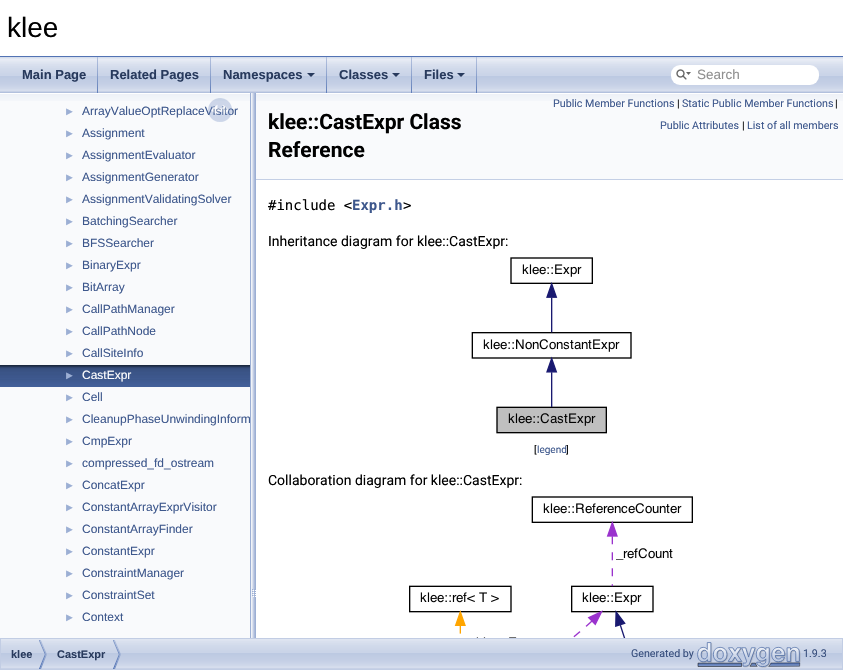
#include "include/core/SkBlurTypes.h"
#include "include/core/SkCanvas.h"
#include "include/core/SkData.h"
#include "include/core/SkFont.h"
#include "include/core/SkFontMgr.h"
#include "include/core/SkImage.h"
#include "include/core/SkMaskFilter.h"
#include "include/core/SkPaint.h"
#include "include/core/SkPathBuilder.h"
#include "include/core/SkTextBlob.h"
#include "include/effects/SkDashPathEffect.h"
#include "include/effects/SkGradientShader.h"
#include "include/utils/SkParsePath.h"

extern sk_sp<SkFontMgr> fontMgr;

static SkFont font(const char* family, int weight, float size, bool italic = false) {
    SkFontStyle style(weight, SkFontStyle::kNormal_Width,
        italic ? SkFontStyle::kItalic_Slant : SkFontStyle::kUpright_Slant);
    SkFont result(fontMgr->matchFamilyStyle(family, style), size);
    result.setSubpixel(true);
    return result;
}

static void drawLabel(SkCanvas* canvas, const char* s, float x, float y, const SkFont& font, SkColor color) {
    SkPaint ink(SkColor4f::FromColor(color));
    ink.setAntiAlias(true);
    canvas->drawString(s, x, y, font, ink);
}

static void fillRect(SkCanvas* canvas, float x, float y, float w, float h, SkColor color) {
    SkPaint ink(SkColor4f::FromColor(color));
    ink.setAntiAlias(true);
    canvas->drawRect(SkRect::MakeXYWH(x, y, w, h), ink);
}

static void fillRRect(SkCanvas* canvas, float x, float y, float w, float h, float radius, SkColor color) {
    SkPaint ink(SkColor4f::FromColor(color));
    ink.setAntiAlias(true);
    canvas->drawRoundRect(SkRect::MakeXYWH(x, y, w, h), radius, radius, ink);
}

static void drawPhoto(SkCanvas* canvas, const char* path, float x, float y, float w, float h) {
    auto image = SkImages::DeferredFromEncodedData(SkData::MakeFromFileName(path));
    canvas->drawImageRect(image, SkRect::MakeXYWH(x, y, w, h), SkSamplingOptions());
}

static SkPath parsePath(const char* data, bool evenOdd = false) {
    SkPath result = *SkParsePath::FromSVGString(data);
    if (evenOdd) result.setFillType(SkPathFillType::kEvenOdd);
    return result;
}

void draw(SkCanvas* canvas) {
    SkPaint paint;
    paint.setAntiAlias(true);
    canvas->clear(0xFFFFFFFF);
    fillRect(canvas, 0, 56, 843, 1, 0xFF5373B4);
    SkFont font1 = font("Liberation Sans", 400, 28);
    drawLabel(canvas, "klee", 7, 37, font1, 0xFF000000);
    drawPhoto(canvas, "assets/img1.png", 0, 57, 843, 36);
    drawPhoto(canvas, "assets/img2.png", 97, 57, 1, 36);
    SkFont font2 = font("Liberation Sans", 700, 13);
    drawLabel(canvas, "Main Page", 22, 79, font2, 0xFF283A5D);
    drawPhoto(canvas, "assets/img2.png", 210, 57, 1, 36);
    drawLabel(canvas, "Related Pages", 110, 79, font2, 0xFF283A5D);
    drawPhoto(canvas, "assets/img2.png", 326, 57, 1, 36);
    drawLabel(canvas, "Namespaces", 223, 79, font2, 0xFF283A5D);
    paint.setColor(0xFF283A5D);
    canvas->drawPath(parsePath("M307 73H315L311 77Z"), paint);
    drawPhoto(canvas, "assets/img2.png", 411, 57, 1, 36);
    drawLabel(canvas, "Classes", 339, 79, font2, 0xFF283A5D);
    canvas->drawPath(parsePath("M392 73H400L396 77Z"), paint);
    drawPhoto(canvas, "assets/img2.png", 476, 57, 1, 36);
    drawLabel(canvas, "Files", 424, 79, font2, 0xFF283A5D);
    canvas->drawPath(parsePath("M457 73H465L461 77Z"), paint);
    fillRRect(canvas, 671, 65, 148, 20, 9, 0xFFFFFFFF);
    drawPhoto(canvas, "assets/img3.png", 676, 69, 15, 11);
    SkFont font3 = font("Liberation Sans", 400, 13.5f);
    drawLabel(canvas, "Search", 697, 79, font3, 0xFF909090);
    fillRect(canvas, 0, 101, 250, 537, 0xFFF9FAFC);
    drawPhoto(canvas, "assets/img4.png", 0, 93, 250, 8);
    SkFont font4 = font("Liberation Sans", 400, 12);
    drawLabel(canvas, "ArrayValueOptReplaceVisitor", 82, 115, font4, 0xFF3D578C);
    drawPhoto(canvas, "assets/img5.png", 208, 98, 24, 24);
    SkFont font5 = font("Liberation Sans", 400, 11);
    drawLabel(canvas, "►", 64, 115, font5, 0xFF9CAFD4);
    drawLabel(canvas, "►", 64, 137, font5, 0xFF9CAFD4);
    drawLabel(canvas, "Assignment", 82, 137, font4, 0xFF3D578C);
    drawLabel(canvas, "►", 64, 159, font5, 0xFF9CAFD4);
    drawLabel(canvas, "AssignmentEvaluator", 82, 159, font4, 0xFF3D578C);
    drawLabel(canvas, "►", 64, 181, font5, 0xFF9CAFD4);
    drawLabel(canvas, "AssignmentGenerator", 82, 181, font4, 0xFF3D578C);
    drawLabel(canvas, "►", 64, 203, font5, 0xFF9CAFD4);
    drawLabel(canvas, "AssignmentValidatingSolver", 82, 203, font4, 0xFF3D578C);
    drawLabel(canvas, "►", 64, 225, font5, 0xFF9CAFD4);
    drawLabel(canvas, "BatchingSearcher", 82, 225, font4, 0xFF3D578C);
    drawLabel(canvas, "►", 64, 247, font5, 0xFF9CAFD4);
    drawLabel(canvas, "BFSSearcher", 82, 247, font4, 0xFF3D578C);
    drawLabel(canvas, "►", 64, 269, font5, 0xFF9CAFD4);
    drawLabel(canvas, "BinaryExpr", 82, 269, font4, 0xFF3D578C);
    drawLabel(canvas, "►", 64, 291, font5, 0xFF9CAFD4);
    drawLabel(canvas, "BitArray", 82, 291, font4, 0xFF3D578C);
    drawLabel(canvas, "►", 64, 313, font5, 0xFF9CAFD4);
    drawLabel(canvas, "CallPathManager", 82, 313, font4, 0xFF3D578C);
    drawLabel(canvas, "►", 64, 335, font5, 0xFF9CAFD4);
    drawLabel(canvas, "CallPathNode", 82, 335, font4, 0xFF3D578C);
    drawLabel(canvas, "►", 64, 357, font5, 0xFF9CAFD4);
    drawLabel(canvas, "CallSiteInfo", 82, 357, font4, 0xFF3D578C);
    drawPhoto(canvas, "assets/img6.png", 0, 365, 250, 22);
    drawLabel(canvas, "►", 64, 379, font5, 0xFF9CAFD4);
    drawLabel(canvas, "CastExpr", 82, 379, font4, 0xFFFFFFFF);
    drawLabel(canvas, "►", 64, 401, font5, 0xFF9CAFD4);
    drawLabel(canvas, "Cell", 82, 401, font4, 0xFF3D578C);
    drawLabel(canvas, "►", 64, 423, font5, 0xFF9CAFD4);
    drawLabel(canvas, "CleanupPhaseUnwindingInform", 82, 423, font4, 0xFF3D578C);
    drawLabel(canvas, "►", 64, 445, font5, 0xFF9CAFD4);
    drawLabel(canvas, "CmpExpr", 82, 445, font4, 0xFF3D578C);
    drawLabel(canvas, "►", 64, 467, font5, 0xFF9CAFD4);
    drawLabel(canvas, "compressed_fd_ostream", 82, 467, font4, 0xFF3D578C);
    drawLabel(canvas, "►", 64, 489, font5, 0xFF9CAFD4);
    drawLabel(canvas, "ConcatExpr", 82, 489, font4, 0xFF3D578C);
    drawLabel(canvas, "►", 64, 511, font5, 0xFF9CAFD4);
    drawLabel(canvas, "ConstantArrayExprVisitor", 82, 511, font4, 0xFF3D578C);
    drawLabel(canvas, "►", 64, 533, font5, 0xFF9CAFD4);
    drawLabel(canvas, "ConstantArrayFinder", 82, 533, font4, 0xFF3D578C);
    drawLabel(canvas, "►", 64, 555, font5, 0xFF9CAFD4);
    drawLabel(canvas, "ConstantExpr", 82, 555, font4, 0xFF3D578C);
    drawLabel(canvas, "►", 64, 577, font5, 0xFF9CAFD4);
    drawLabel(canvas, "ConstraintManager", 82, 577, font4, 0xFF3D578C);
    drawLabel(canvas, "►", 64, 599, font5, 0xFF9CAFD4);
    drawLabel(canvas, "ConstraintSet", 82, 599, font4, 0xFF3D578C);
    drawLabel(canvas, "►", 64, 621, font5, 0xFF9CAFD4);
    drawLabel(canvas, "Context", 82, 621, font4, 0xFF3D578C);
    drawPhoto(canvas, "assets/img7.png", 250, 93, 6, 545);
    fillRect(canvas, 256, 101, 587, 78, 0xFFF9FAFC);
    drawPhoto(canvas, "assets/img8.png", 256, 93, 587, 8);
    fillRect(canvas, 256, 179, 587, 1, 0xFFC4CFE5);
    SkFont font6 = font("Roboto", 700, 21);
    drawLabel(canvas, "klee::CastExpr Class", 268, 129, font6, 0xFF000000);
    drawLabel(canvas, "Reference", 268, 157, font6, 0xFF000000);
    SkFont font7 = font("Roboto", 400, 10.7f);
    drawLabel(canvas, "Public Member Functions", 553, 107, font7, 0xFF3D578C);
    drawLabel(canvas, "|", 677, 107, font7, 0xFF000000);
    drawLabel(canvas, "Static Public Member Functions", 682, 107, font7, 0xFF3D578C);
    drawLabel(canvas, "|", 835, 107, font7, 0xFF000000);
    drawLabel(canvas, "Public Attributes", 660, 129, font7, 0xFF3D578C);
    drawLabel(canvas, "|", 742, 129, font7, 0xFF000000);
    drawLabel(canvas, "List of all members", 747, 129, font7, 0xFF3D578C);
    SkFont font8 = font("DejaVu Sans Mono", 400, 14);
    drawLabel(canvas, "#include <", 268, 210, font8, 0xFF000000);
    SkFont font9 = font("DejaVu Sans Mono", 700, 14);
    drawLabel(canvas, "Expr.h", 352, 210, font9, 0xFF3D578C);
    drawLabel(canvas, ">", 403, 210, font8, 0xFF000000);
    SkFont font10 = font("Roboto", 400, 14);
    drawLabel(canvas, "Inheritance diagram for klee::CastExpr:", 268, 246, font10, 0xFF000000);
    drawPhoto(canvas, "assets/img9.png", 471, 257, 161, 177);
    SkFont font11 = font("Roboto", 400, 10);
    drawLabel(canvas, "[", 534, 453, font11, 0xFF000000);
    drawLabel(canvas, "legend", 537, 453, font11, 0xFF3D578C);
    drawLabel(canvas, "]", 566, 453, font11, 0xFF000000);
    drawLabel(canvas, "Collaboration diagram for klee::CastExpr:", 268, 485, font10, 0xFF000000);
    drawPhoto(canvas, "assets/img10.png", 409, 496, 284, 142);
    drawPhoto(canvas, "assets/img11.png", 1, 639, 841, 30);
    paint.setStroke(true);
    paint.setStrokeWidth(1);
    paint.setColor(0xFFC2CDE4);
    canvas->drawRect(SkRect::MakeXYWH(0.5f, 638.5f, 842, 31), paint);
    drawPhoto(canvas, "assets/img12.png", 39, 640, 8, 29);
    SkFont font12 = font("Liberation Sans", 700, 11);
    drawLabel(canvas, "klee", 11, 658, font12, 0xFF283A5D);
    drawPhoto(canvas, "assets/img12.png", 113, 640, 8, 29);
    drawLabel(canvas, "CastExpr", 57, 658, font12, 0xFF283A5D);
    drawLabel(canvas, "Generated by", 631, 657, font7, 0xFF364D7C);
    drawPhoto(canvas, "assets/img13.png", 697, 642, 104, 26);
    drawLabel(canvas, "1.9.3", 803, 657, font7, 0xFF364D7C);
}
